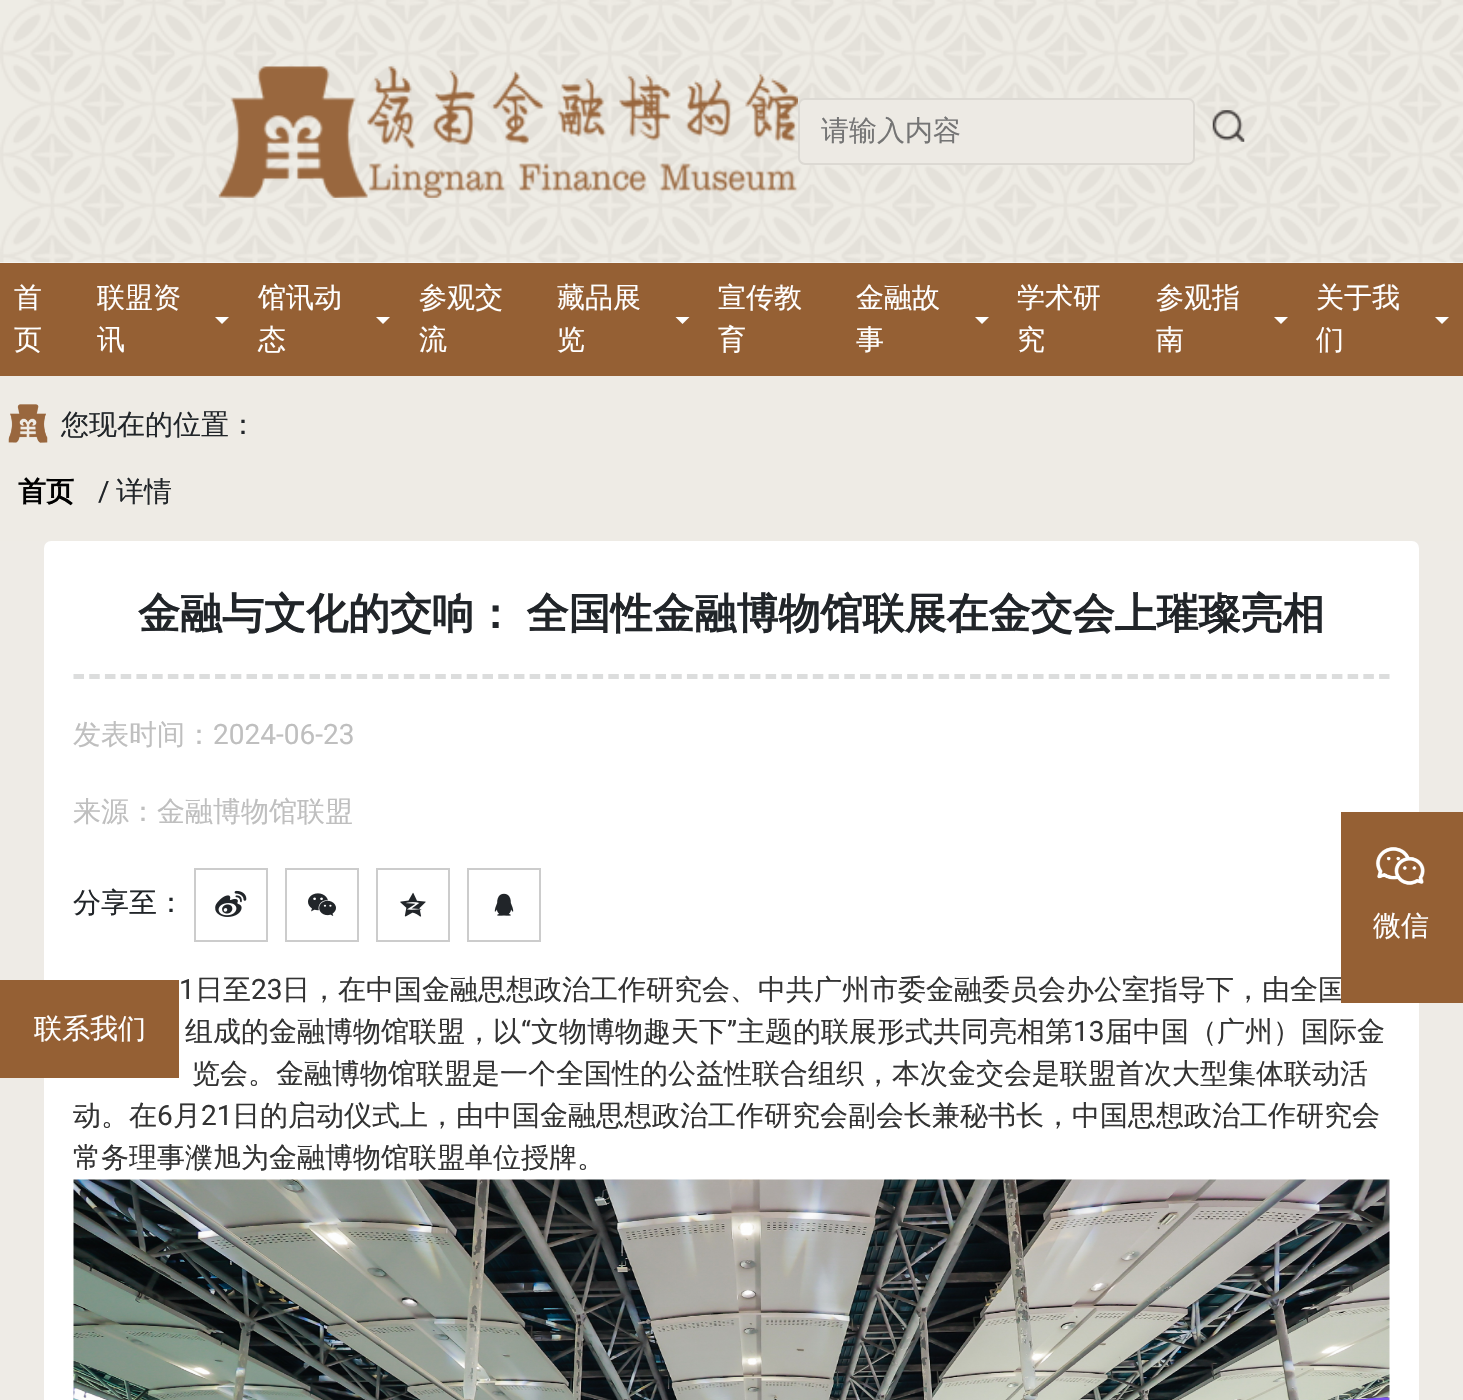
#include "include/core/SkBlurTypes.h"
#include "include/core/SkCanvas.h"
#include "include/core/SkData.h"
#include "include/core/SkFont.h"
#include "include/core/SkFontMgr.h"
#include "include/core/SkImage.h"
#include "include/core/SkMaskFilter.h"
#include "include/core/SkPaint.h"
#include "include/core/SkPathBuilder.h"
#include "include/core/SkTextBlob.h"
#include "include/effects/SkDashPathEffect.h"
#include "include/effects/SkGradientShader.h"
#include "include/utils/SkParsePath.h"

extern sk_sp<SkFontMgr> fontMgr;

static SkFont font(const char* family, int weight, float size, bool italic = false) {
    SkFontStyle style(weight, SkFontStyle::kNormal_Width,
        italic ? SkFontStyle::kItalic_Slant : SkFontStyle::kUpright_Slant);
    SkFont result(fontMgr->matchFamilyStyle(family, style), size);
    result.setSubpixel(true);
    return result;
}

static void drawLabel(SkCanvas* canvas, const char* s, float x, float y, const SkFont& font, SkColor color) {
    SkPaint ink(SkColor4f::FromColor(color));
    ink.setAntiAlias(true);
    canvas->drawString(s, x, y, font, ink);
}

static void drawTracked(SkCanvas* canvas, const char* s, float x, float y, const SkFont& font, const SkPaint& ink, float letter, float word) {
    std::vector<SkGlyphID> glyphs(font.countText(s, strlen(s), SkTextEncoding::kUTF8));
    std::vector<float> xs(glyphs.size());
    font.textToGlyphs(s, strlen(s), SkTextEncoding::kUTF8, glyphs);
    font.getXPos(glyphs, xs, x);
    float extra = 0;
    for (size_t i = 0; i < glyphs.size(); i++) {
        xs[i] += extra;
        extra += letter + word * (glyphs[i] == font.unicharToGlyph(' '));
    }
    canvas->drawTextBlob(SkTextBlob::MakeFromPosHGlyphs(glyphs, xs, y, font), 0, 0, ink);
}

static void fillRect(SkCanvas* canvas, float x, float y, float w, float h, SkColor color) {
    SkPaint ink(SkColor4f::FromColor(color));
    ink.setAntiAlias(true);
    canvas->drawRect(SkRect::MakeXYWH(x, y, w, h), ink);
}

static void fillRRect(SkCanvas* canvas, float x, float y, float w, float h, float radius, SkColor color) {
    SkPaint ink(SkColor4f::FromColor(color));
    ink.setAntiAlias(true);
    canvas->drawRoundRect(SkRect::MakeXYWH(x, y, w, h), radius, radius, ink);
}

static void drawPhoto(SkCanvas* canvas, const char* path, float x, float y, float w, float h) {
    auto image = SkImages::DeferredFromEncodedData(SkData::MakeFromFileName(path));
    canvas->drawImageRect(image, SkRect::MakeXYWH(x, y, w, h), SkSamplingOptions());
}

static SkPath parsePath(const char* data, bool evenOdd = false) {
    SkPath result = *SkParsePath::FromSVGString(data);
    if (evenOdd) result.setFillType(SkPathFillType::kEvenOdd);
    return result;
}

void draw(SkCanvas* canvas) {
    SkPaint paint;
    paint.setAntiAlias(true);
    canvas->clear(0xFFFFFFFF);
    drawPhoto(canvas, "assets/img1.png", 0, 0, 1463, 263);
    drawPhoto(canvas, "assets/img2.png", 218, 66, 150, 132);
    drawPhoto(canvas, "assets/img3.png", 367, 66, 431, 132);
    paint.setColor(0xFFEDEAE4);
    canvas->drawRoundRect(SkRect::MakeXYWH(799, 99, 395, 65), 6, 6, paint);
    paint.setStroke(true);
    paint.setStrokeWidth(2);
    paint.setColor(0xFFDCD9D3);
    canvas->drawRoundRect(SkRect::MakeXYWH(799, 99, 395, 65), 6, 6, paint);
    SkFont font1 = font("WenQuanYi Zen Hei", 500, 28);
    drawLabel(canvas, "请输入内容", 821, 140, font1, 0xFF757575);
    drawPhoto(canvas, "assets/img4.png", 1212, 110, 33, 32);
    fillRect(canvas, 0, 263, 1463, 113, 0xFF956034);
    drawLabel(canvas, "首", 14, 307, font1, 0xFFFFFFFF);
    drawLabel(canvas, "页", 14, 349, font1, 0xFFFFFFFF);
    drawLabel(canvas, "联盟资", 97, 307, font1, 0xFFFFFFFF);
    drawLabel(canvas, "讯", 97, 349, font1, 0xFFFFFFFF);
    paint.setStroke(false);
    paint.setColor(0xFFFFFFFF);
    canvas->drawPath(parsePath("M215 317H229L222 324Z"), paint);
    drawLabel(canvas, "馆讯动", 258, 307, font1, 0xFFFFFFFF);
    drawLabel(canvas, "态", 258, 349, font1, 0xFFFFFFFF);
    canvas->drawPath(parsePath("M376 317H390L383 324Z"), paint);
    drawLabel(canvas, "参观交", 419, 307, font1, 0xFFFFFFFF);
    drawLabel(canvas, "流", 419, 349, font1, 0xFFFFFFFF);
    drawLabel(canvas, "藏品展", 557, 307, font1, 0xFFFFFFFF);
    drawLabel(canvas, "览", 557, 349, font1, 0xFFFFFFFF);
    canvas->drawPath(parsePath("M675.5 317H689.5L682.5 324Z"), paint);
    drawLabel(canvas, "宣传教", 718, 307, font1, 0xFFFFFFFF);
    drawLabel(canvas, "育", 718, 349, font1, 0xFFFFFFFF);
    drawLabel(canvas, "金融故", 856, 307, font1, 0xFFFFFFFF);
    drawLabel(canvas, "事", 856, 349, font1, 0xFFFFFFFF);
    canvas->drawPath(parsePath("M975 317H989L982 324Z"), paint);
    drawLabel(canvas, "学术研", 1017, 307, font1, 0xFFFFFFFF);
    drawLabel(canvas, "究", 1017, 349, font1, 0xFFFFFFFF);
    drawLabel(canvas, "参观指", 1156, 307, font1, 0xFFFFFFFF);
    drawLabel(canvas, "南", 1156, 349, font1, 0xFFFFFFFF);
    canvas->drawPath(parsePath("M1274 317H1288L1281 324Z"), paint);
    drawLabel(canvas, "关于我", 1316, 307, font1, 0xFFFFFFFF);
    drawLabel(canvas, "们", 1316, 349, font1, 0xFFFFFFFF);
    canvas->drawPath(parsePath("M1435 317H1449L1442 324Z"), paint);
    fillRect(canvas, 0, 376, 1463, 165, 0xFFEEEBE5);
    drawPhoto(canvas, "assets/img5.png", 8, 404, 40, 39);
    drawLabel(canvas, "您现在的位置：", 61, 434, font1, 0xFF212529);
    SkFont font2 = font("WenQuanYi Zen Hei", 700, 28);
    drawLabel(canvas, "首页", 18, 501, font2, 0xFF000000);
    SkFont font3 = font("Roboto", 400, 28);
    drawLabel(canvas, "/", 98, 501, font3, 0xFF212529);
    drawLabel(canvas, "详情", 116, 501, font1, 0xFF212529);
    fillRect(canvas, 0, 541, 1463, 859, 0xFFEEEBE6);
    fillRRect(canvas, 44, 541, 1375, 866, 7, 0xFFFFFFFF);
    paint.setStroke(true);
    paint.setStrokeWidth(5.2f);
    paint.setColor(0xFFDCDDDD);
    paint.setPathEffect(SkDashPathEffect::Make({{10.5f, 5.23f}}, 0));
    canvas->drawPath(parsePath("M73.5 676.5H1389.5"), paint);
    paint.setPathEffect(nullptr);
    SkFont font4 = font("WenQuanYi Zen Hei", 700, 42);
    paint.setStroke(false);
    paint.setColor(0xFF212529);
    drawTracked(canvas, "金融与文化的交响： 全国性金融博物馆联展在金交会上璀璨亮相", 138, 628, font4, paint, 0, -2);
    drawLabel(canvas, "发表时间：", 73, 744, font1, 0xFFBFBFBF);
    drawLabel(canvas, "2024-06-23", 213, 744, font3, 0xFFBFBFBF);
    drawLabel(canvas, "来源：金融博物馆联盟", 73, 821, font1, 0xFFBFBFBF);
    drawLabel(canvas, "分享至：", 73, 912, font1, 0xFF212529);
    paint.setStroke(true);
    paint.setStrokeWidth(2);
    paint.setColor(0xFFCCCCCC);
    canvas->drawRect(SkRect::MakeXYWH(195, 869, 72, 72), paint);
    drawPhoto(canvas, "assets/img6.png", 215, 890, 32, 27);
    canvas->drawRect(SkRect::MakeXYWH(286, 869, 72, 72), paint);
    drawPhoto(canvas, "assets/img7.png", 308, 893, 28, 23);
    canvas->drawRect(SkRect::MakeXYWH(377, 869, 72, 72), paint);
    drawPhoto(canvas, "assets/img8.png", 400, 892, 26, 25);
    canvas->drawRect(SkRect::MakeXYWH(468, 869, 72, 72), paint);
    drawPhoto(canvas, "assets/img9.png", 494, 893, 20, 23);
    drawLabel(canvas, "1", 179, 999, font3, 0xFF333333);
    drawLabel(canvas, "日至", 195, 999, font1, 0xFF333333);
    drawLabel(canvas, "23", 251, 999, font3, 0xFF333333);
    drawLabel(canvas, "日，在中国金融思想政治工作研究会、中共广州市委金融委员会办公室指导下，由全国", 282, 999, font1, 0xFF333333);
    drawLabel(canvas, "组成的金融博物馆联盟，以", 185, 1041, font1, 0xFF333333);
    drawLabel(canvas, "“", 521, 1041, font3, 0xFF333333);
    drawLabel(canvas, "文物博物趣天下", 531, 1041, font1, 0xFF333333);
    drawLabel(canvas, "”", 727, 1041, font3, 0xFF333333);
    drawLabel(canvas, "主题的联展形式共同亮相第", 737, 1041, font1, 0xFF333333);
    drawLabel(canvas, "13", 1073, 1041, font3, 0xFF333333);
    drawLabel(canvas, "届中国（广州）国际金", 1105, 1041, font1, 0xFF333333);
    paint.setStroke(false);
    paint.setColor(0xFF333333);
    drawTracked(canvas, "览会。金融博物馆联盟是一个全国性的公益性联合组织，本次金交会是联盟首次大型集体联动活", 192, 1083, font1, paint, 0, -1);
    drawLabel(canvas, "动。在", 73, 1125, font1, 0xFF333333);
    drawLabel(canvas, "6", 157, 1125, font3, 0xFF333333);
    drawLabel(canvas, "月", 173, 1125, font1, 0xFF333333);
    drawLabel(canvas, "21", 201, 1125, font3, 0xFF333333);
    drawLabel(canvas, "日的启动仪式上，由中国金融思想政治工作研究会副会长兼秘书长，中国思想政治工作研究会", 232, 1125, font1, 0xFF333333);
    drawLabel(canvas, "常务理事濮旭为金融博物馆联盟单位授牌。", 73, 1167, font1, 0xFF333333);
    drawPhoto(canvas, "assets/img10.png", 73, 1179, 1317, 221);
    fillRect(canvas, 1341, 812, 122, 191, 0xFF956034);
    drawPhoto(canvas, "assets/img11.png", 1375, 847, 50, 38);
    drawLabel(canvas, "微信", 1373, 935, font1, 0xFFFFFFFF);
    fillRect(canvas, 0, 980, 179, 98, 0xFF956034);
    drawLabel(canvas, "联系我们", 34, 1038, font1, 0xFFFFFFFF);
}
